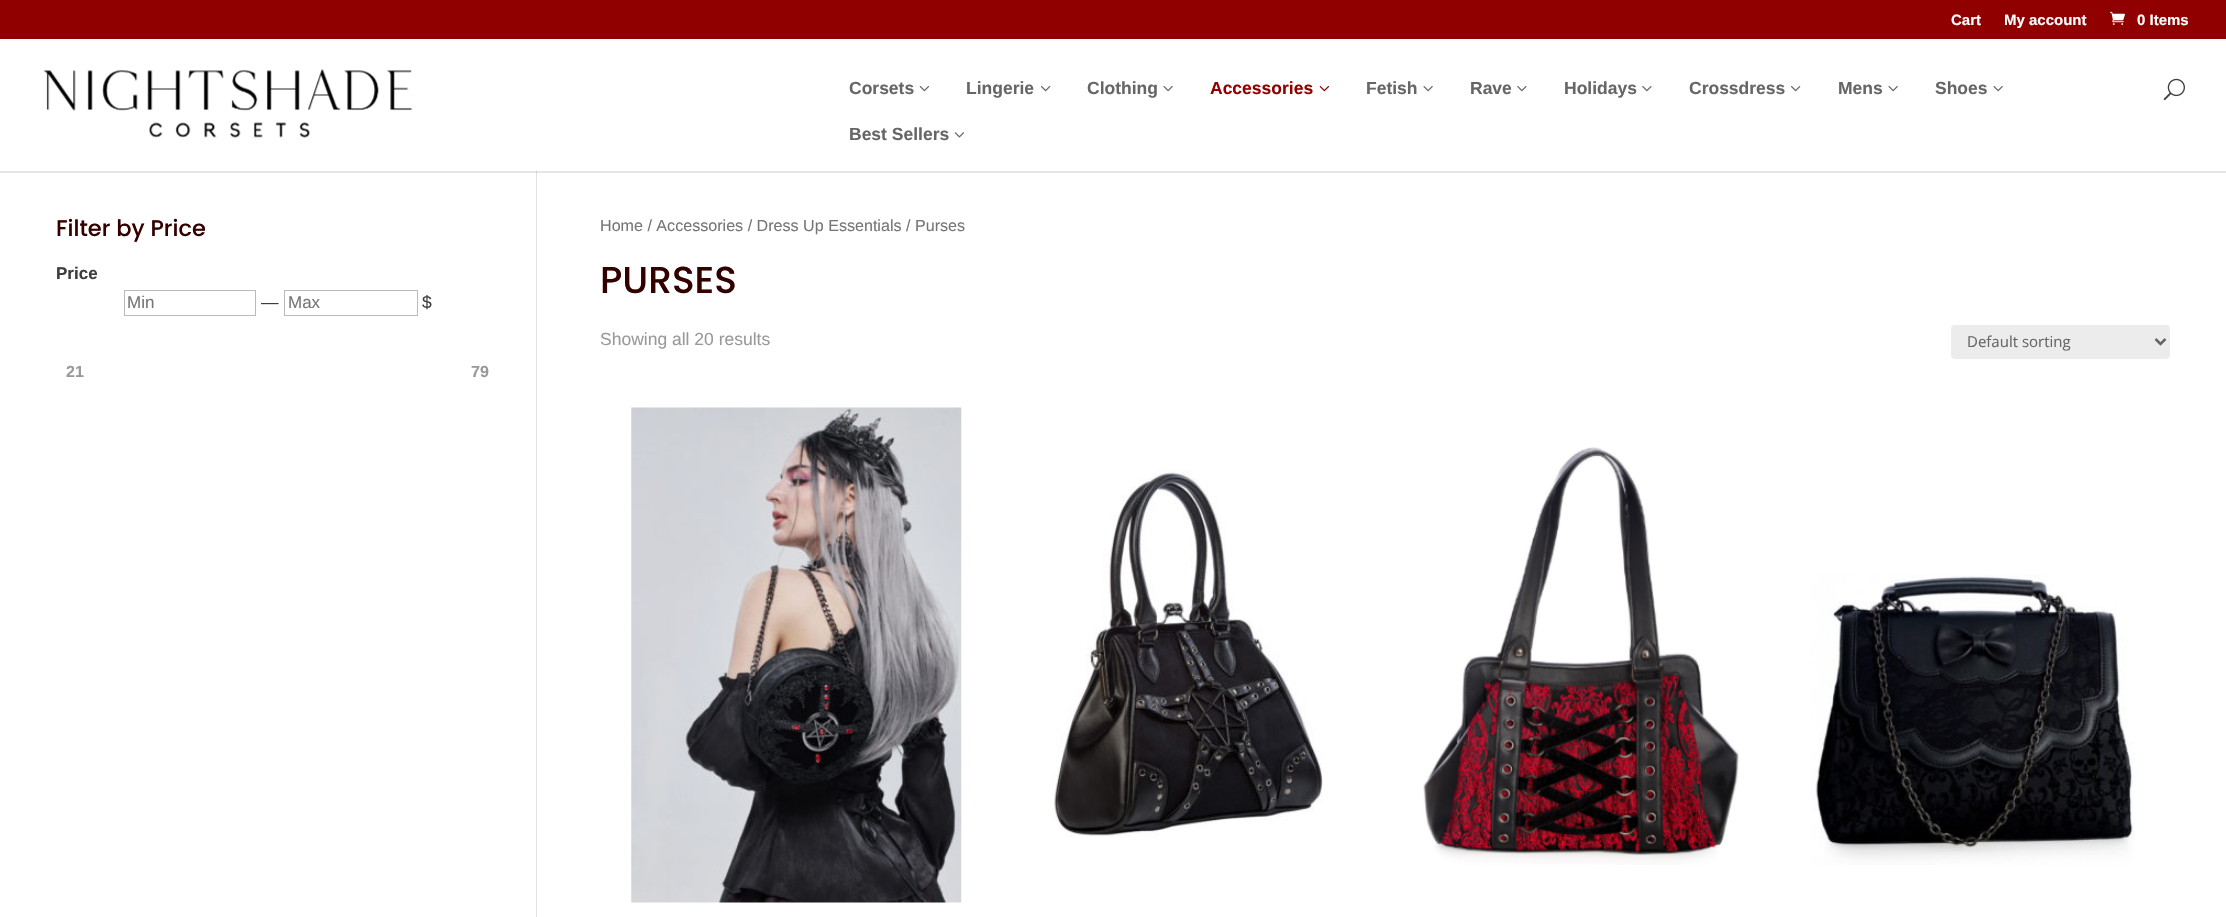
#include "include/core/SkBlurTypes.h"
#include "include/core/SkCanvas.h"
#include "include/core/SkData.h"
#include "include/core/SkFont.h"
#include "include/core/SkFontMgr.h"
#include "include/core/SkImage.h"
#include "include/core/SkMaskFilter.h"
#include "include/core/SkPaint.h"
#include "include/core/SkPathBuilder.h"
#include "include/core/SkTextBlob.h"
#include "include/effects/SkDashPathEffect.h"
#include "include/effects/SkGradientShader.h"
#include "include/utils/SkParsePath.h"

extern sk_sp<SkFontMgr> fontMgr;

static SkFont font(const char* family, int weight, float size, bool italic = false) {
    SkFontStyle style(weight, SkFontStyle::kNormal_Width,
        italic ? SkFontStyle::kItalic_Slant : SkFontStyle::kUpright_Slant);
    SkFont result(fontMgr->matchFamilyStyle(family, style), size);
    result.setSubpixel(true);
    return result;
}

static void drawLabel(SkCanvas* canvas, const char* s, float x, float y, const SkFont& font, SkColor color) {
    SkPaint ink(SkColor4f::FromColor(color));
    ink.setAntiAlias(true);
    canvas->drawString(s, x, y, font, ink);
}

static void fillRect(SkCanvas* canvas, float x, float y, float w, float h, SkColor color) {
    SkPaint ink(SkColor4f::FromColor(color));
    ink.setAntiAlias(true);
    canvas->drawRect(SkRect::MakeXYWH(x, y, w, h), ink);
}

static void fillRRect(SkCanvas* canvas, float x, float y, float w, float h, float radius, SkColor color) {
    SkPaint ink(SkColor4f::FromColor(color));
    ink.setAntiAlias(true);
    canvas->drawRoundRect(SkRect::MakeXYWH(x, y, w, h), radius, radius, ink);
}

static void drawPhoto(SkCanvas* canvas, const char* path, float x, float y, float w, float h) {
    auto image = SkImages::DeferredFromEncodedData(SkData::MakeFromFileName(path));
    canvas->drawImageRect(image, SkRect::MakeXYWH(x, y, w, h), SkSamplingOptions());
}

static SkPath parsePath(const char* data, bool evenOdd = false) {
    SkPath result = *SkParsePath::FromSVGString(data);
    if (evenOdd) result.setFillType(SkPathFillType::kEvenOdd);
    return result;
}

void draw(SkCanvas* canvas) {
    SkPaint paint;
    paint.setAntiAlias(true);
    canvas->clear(0xFFFFFFFF);
    fillRect(canvas, 0, 0, 2226, 39, 0xFF910000);
    SkFont font1 = font("Liberation Sans", 700, 15);
    drawLabel(canvas, "Cart", 1951, 25, font1, 0xFFFFFFFF);
    drawLabel(canvas, "My account", 2004, 25, font1, 0xFFFFFFFF);
    drawPhoto(canvas, "assets/img1.png", 2110, 11, 15, 14);
    drawLabel(canvas, "0 Items", 2137, 25, font1, 0xFFFFFFFF);
    drawPhoto(canvas, "assets/img2.png", 44, 69, 369, 69);
    SkFont font2 = font("Liberation Sans", 700, 17.5f);
    drawLabel(canvas, "Corsets", 849, 94, font2, 0xFF666666);
    drawPhoto(canvas, "assets/img3.png", 919, 86, 10, 6);
    drawLabel(canvas, "Lingerie", 966, 94, font2, 0xFF666666);
    drawPhoto(canvas, "assets/img4.png", 1041, 86, 10, 6);
    drawLabel(canvas, "Clothing", 1087, 94, font2, 0xFF666666);
    drawPhoto(canvas, "assets/img5.png", 1163, 86, 10, 6);
    drawLabel(canvas, "Accessories", 1210, 94, font2, 0xFF910101);
    drawPhoto(canvas, "assets/img6.png", 1319, 86, 10, 6);
    drawLabel(canvas, "Fetish", 1366, 94, font2, 0xFF666666);
    drawPhoto(canvas, "assets/img5.png", 1423, 86, 10, 6);
    drawLabel(canvas, "Rave", 1470, 94, font2, 0xFF666666);
    drawPhoto(canvas, "assets/img7.png", 1517, 86, 10, 6);
    drawLabel(canvas, "Holidays", 1564, 94, font2, 0xFF666666);
    drawPhoto(canvas, "assets/img7.png", 1642, 86, 10, 6);
    drawLabel(canvas, "Crossdress", 1689, 94, font2, 0xFF666666);
    drawPhoto(canvas, "assets/img4.png", 1791, 86, 10, 6);
    drawLabel(canvas, "Mens", 1838, 94, font2, 0xFF666666);
    drawPhoto(canvas, "assets/img5.png", 1888, 86, 10, 6);
    drawLabel(canvas, "Shoes", 1935, 94, font2, 0xFF666666);
    drawPhoto(canvas, "assets/img5.png", 1993, 86, 10, 6);
    drawLabel(canvas, "Best Sellers", 849, 140, font2, 0xFF666666);
    drawPhoto(canvas, "assets/img8.png", 954, 132, 10, 6);
    drawPhoto(canvas, "assets/img9.png", 2163, 78, 22, 23);
    fillRect(canvas, 0, 171, 2226, 2, 0xFFE6E6E6);
    fillRect(canvas, 536, 173, 1, 744, 0xFFE2E2E2);
    fillRect(canvas, 536, 171, 1, 2, 0xFFCBCBCB);
    SkFont font3 = font("Poppins", 500, 22.5f);
    drawLabel(canvas, "Filter by Price", 56, 236, font3, 0xFF330000);
    SkFont font4 = font("Liberation Sans", 700, 17);
    drawLabel(canvas, "Price", 56, 279, font4, 0xFF3D3D3D);
    paint.setStroke(true);
    paint.setStrokeWidth(1);
    paint.setColor(0xFFBBBBBB);
    canvas->drawRect(SkRect::MakeXYWH(124.5f, 290.5f, 131, 25), paint);
    SkFont font5 = font("Liberation Sans", 400, 17);
    drawLabel(canvas, "Min", 127, 308, font5, 0xFF767676);
    SkFont font6 = font("Liberation Sans", 400, 17.5f);
    drawLabel(canvas, "—", 261, 308, font6, 0xFF3D3D3D);
    canvas->drawRect(SkRect::MakeXYWH(284.5f, 290.5f, 133, 25), paint);
    drawLabel(canvas, "Max", 288, 308, font5, 0xFF767676);
    drawLabel(canvas, "$", 422, 308, font6, 0xFF3D3D3D);
    SkFont font7 = font("Liberation Sans", 700, 16.1f);
    drawLabel(canvas, "21", 66, 377, font7, 0xFF999999);
    drawLabel(canvas, "79", 471, 377, font7, 0xFF999999);
    SkFont font8 = font("Liberation Sans", 400, 16.1f);
    drawLabel(canvas, "Home / Accessories / Dress Up Essentials / Purses", 600, 231, font8, 0xFF767676);
    SkFont font9 = font("Poppins", 500, 37.5f);
    drawLabel(canvas, "PURSES", 600, 293, font9, 0xFF330000);
    drawLabel(canvas, "Showing all 20 results", 600, 345, font6, 0xFF999999);
    fillRRect(canvas, 1951, 325, 219, 34, 4, 0xFFECECEC);
    paint.setStrokeWidth(2.5f);
    paint.setColor(0xFF666666);
    canvas->drawPath(parsePath("M2155.5 339L2160.5 344L2165.5 339"), paint);
    SkFont font10 = font("Open Sans", 400, 15);
    drawLabel(canvas, "Default sorting", 1967, 347, font10, 0xFF666666);
    drawPhoto(canvas, "assets/img10.png", 631, 407, 331, 496);
    drawPhoto(canvas, "assets/img11.png", 1051, 469, 272, 369);
    drawPhoto(canvas, "assets/img12.png", 1423, 447, 316, 418);
    drawPhoto(canvas, "assets/img13.png", 1811, 574, 324, 291);
}
